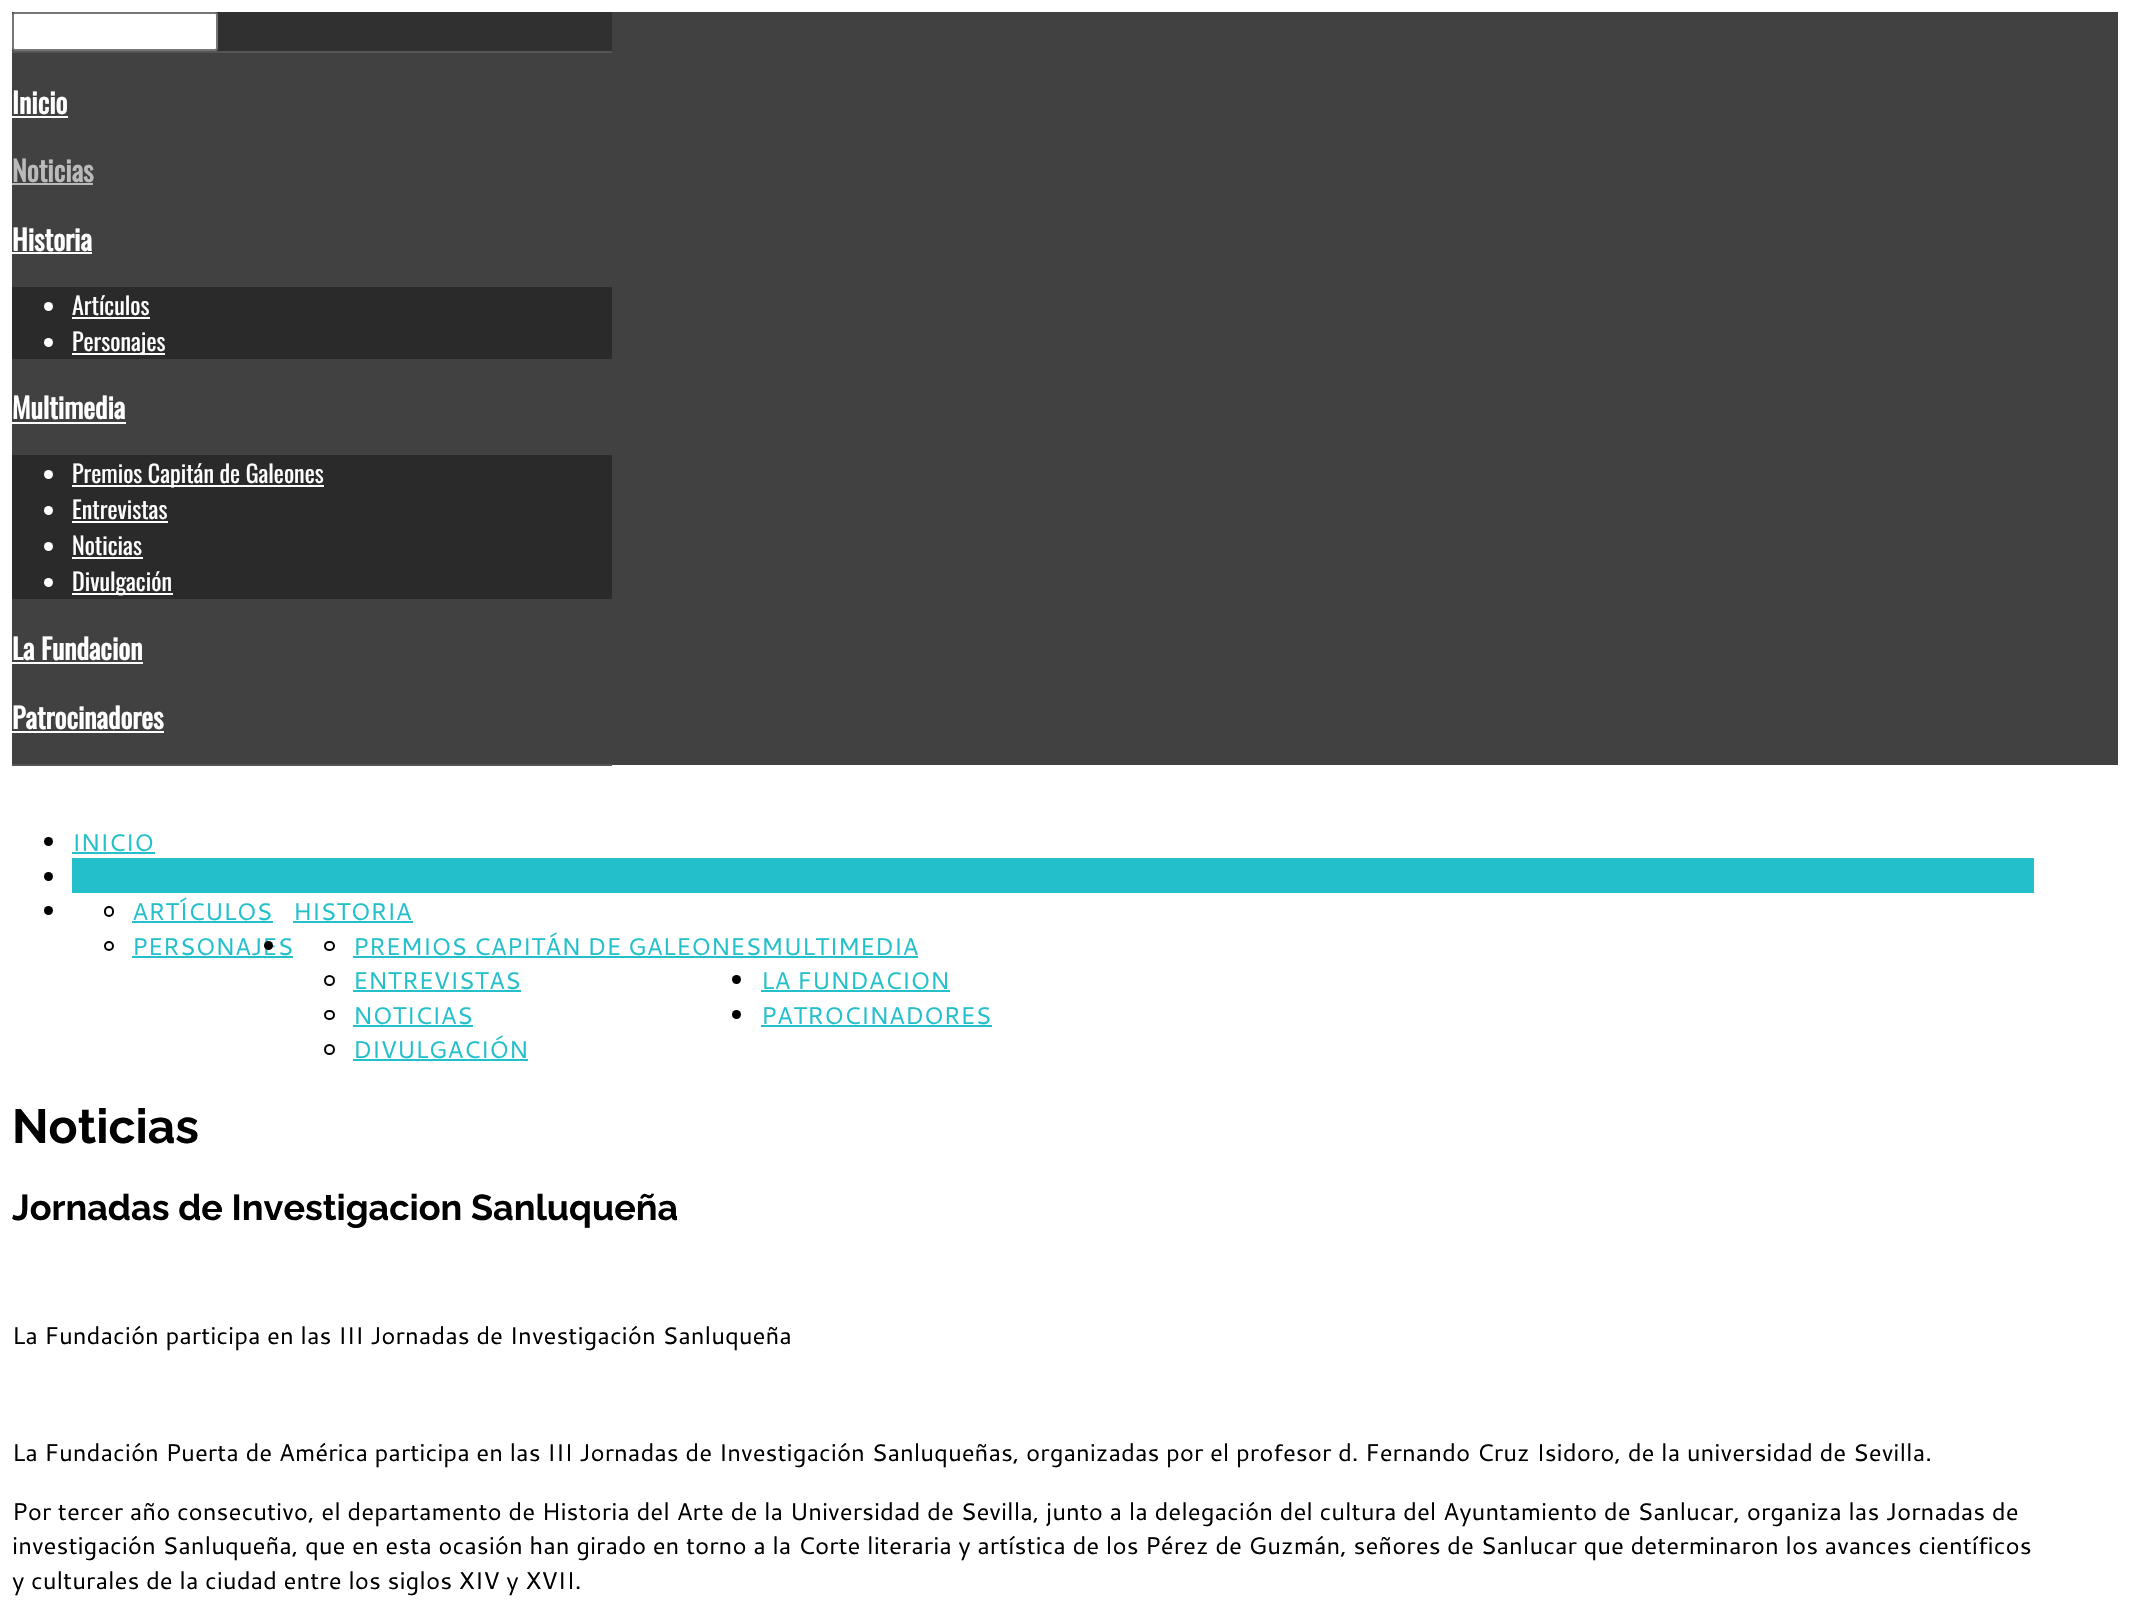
#include "include/core/SkBlurTypes.h"
#include "include/core/SkCanvas.h"
#include "include/core/SkData.h"
#include "include/core/SkFont.h"
#include "include/core/SkFontMgr.h"
#include "include/core/SkImage.h"
#include "include/core/SkMaskFilter.h"
#include "include/core/SkPaint.h"
#include "include/core/SkPathBuilder.h"
#include "include/core/SkTextBlob.h"
#include "include/effects/SkDashPathEffect.h"
#include "include/effects/SkGradientShader.h"
#include "include/utils/SkParsePath.h"

extern sk_sp<SkFontMgr> fontMgr;

static SkFont font(const char* family, int weight, float size, bool italic = false) {
    SkFontStyle style(weight, SkFontStyle::kNormal_Width,
        italic ? SkFontStyle::kItalic_Slant : SkFontStyle::kUpright_Slant);
    SkFont result(fontMgr->matchFamilyStyle(family, style), size);
    result.setSubpixel(true);
    return result;
}

static void drawLabel(SkCanvas* canvas, const char* s, float x, float y, const SkFont& font, SkColor color) {
    SkPaint ink(SkColor4f::FromColor(color));
    ink.setAntiAlias(true);
    canvas->drawString(s, x, y, font, ink);
}

static void fillRect(SkCanvas* canvas, float x, float y, float w, float h, SkColor color) {
    SkPaint ink(SkColor4f::FromColor(color));
    ink.setAntiAlias(true);
    canvas->drawRect(SkRect::MakeXYWH(x, y, w, h), ink);
}

void draw(SkCanvas* canvas) {
    SkPaint paint;
    paint.setAntiAlias(true);
    canvas->clear(0xFFFFFFFF);
    fillRect(canvas, 12, 12, 2106, 753, 0xFF414141);
    fillRect(canvas, 12, 51, 600, 2, 0xFF555555);
    fillRect(canvas, 12, 12, 600, 39, 0xFF303030);
    paint.setColor(0xFFFFFFFF);
    canvas->drawRoundRect(SkRect::MakeXYWH(13, 13, 204, 37), 2, 2, paint);
    paint.setStroke(true);
    paint.setStrokeWidth(2);
    paint.setColor(0xFF767676);
    canvas->drawRoundRect(SkRect::MakeXYWH(13, 13, 204, 37), 2, 2, paint);
    fillRect(canvas, 12, 764, 600, 2, 0xFF555555);
    SkFont font1 = font("Oswald", 700, 28);
    drawLabel(canvas, "Inicio", 12, 114, font1, 0xFFFFFFFF);
    fillRect(canvas, 12, 116, 56, 2, 0xFFFFFFFF);
    drawLabel(canvas, "Noticias", 12, 182, font1, 0xFFBBBABA);
    fillRect(canvas, 12, 183, 81, 2, 0xFFBBBABA);
    drawLabel(canvas, "Historia", 12, 251, font1, 0xFFFFFFFF);
    fillRect(canvas, 12, 252, 80, 2, 0xFFFFFFFF);
    fillRect(canvas, 12, 287, 600, 72, 0xFF2A2A2A);
    paint.setStroke(false);
    paint.setColor(0xFFFFFFFF);
    canvas->drawCircle(48.5f, 306.5f, 4.5f, paint);
    SkFont font2 = font("Oswald", 400, 24);
    drawLabel(canvas, "Artículos", 72, 315, font2, 0xFFFFFFFF);
    fillRect(canvas, 72, 317, 78, 2, 0xFFFFFFFF);
    canvas->drawCircle(48.5f, 342.5f, 4.5f, paint);
    fillRect(canvas, 72, 353, 93, 2, 0xFFFFFFFF);
    drawLabel(canvas, "Personajes", 72, 351, font2, 0xFFFFFFFF);
    drawLabel(canvas, "Multimedia", 12, 419, font1, 0xFFFFFFFF);
    fillRect(canvas, 12, 422, 114, 2, 0xFFFFFFFF);
    fillRect(canvas, 12, 455, 600, 144, 0xFF2A2A2A);
    canvas->drawCircle(48.5f, 474.5f, 4.5f, paint);
    fillRect(canvas, 72, 485, 252, 2, 0xFFFFFFFF);
    drawLabel(canvas, "Premios Capitán de Galeones", 72, 483, font2, 0xFFFFFFFF);
    canvas->drawCircle(48.5f, 510.5f, 4.5f, paint);
    drawLabel(canvas, "Entrevistas", 72, 519, font2, 0xFFFFFFFF);
    fillRect(canvas, 72, 521, 96, 2, 0xFFFFFFFF);
    canvas->drawCircle(48.5f, 546.5f, 4.5f, paint);
    drawLabel(canvas, "Noticias", 72, 555, font2, 0xFFFFFFFF);
    fillRect(canvas, 72, 557, 71, 2, 0xFFFFFFFF);
    canvas->drawCircle(48.5f, 582.5f, 4.5f, paint);
    fillRect(canvas, 72, 593, 101, 2, 0xFFFFFFFF);
    drawLabel(canvas, "Divulgación", 72, 591, font2, 0xFFFFFFFF);
    drawLabel(canvas, "La Fundacion", 12, 660, font1, 0xFFFFFFFF);
    fillRect(canvas, 12, 662, 131, 2, 0xFFFFFFFF);
    drawLabel(canvas, "Patrocinadores", 12, 729, font1, 0xFFFFFFFF);
    fillRect(canvas, 12, 731, 152, 2, 0xFFFFFFFF);
    paint.setColor(0xFF000000);
    canvas->drawCircle(48.5f, 841.5f, 4.5f, paint);
    SkFont font3 = font("Cantarell", 400, 24);
    drawLabel(canvas, "INICIO", 72, 851, font3, 0xFF23C0CC);
    fillRect(canvas, 72, 852, 83, 2, 0xFF23C0CC);
    fillRect(canvas, 72, 858, 1962, 35, 0xFF23C0CC);
    canvas->drawCircle(48.5f, 876.5f, 4.5f, paint);
    canvas->drawCircle(48.5f, 910.5f, 4.5f, paint);
    paint.setStroke(true);
    canvas->drawRoundRect(SkRect::MakeXYWH(105, 907, 8, 9), 4, 4, paint);
    drawLabel(canvas, "ARTÍCULOS", 132, 920, font3, 0xFF23C0CC);
    fillRect(canvas, 132, 921, 141, 2, 0xFF23C0CC);
    canvas->drawCircle(109, 946, 4, paint);
    drawLabel(canvas, "PERSONAJES", 132, 955, font3, 0xFF23C0CC);
    fillRect(canvas, 132, 956, 161, 2, 0xFF23C0CC);
    drawLabel(canvas, "HISTORIA", 293, 920, font3, 0xFF23C0CC);
    fillRect(canvas, 293, 921, 120, 2, 0xFF23C0CC);
    paint.setStroke(false);
    canvas->drawCircle(268.5f, 945.5f, 4.5f, paint);
    paint.setStroke(true);
    canvas->drawRoundRect(SkRect::MakeXYWH(325, 942, 9, 8), 4, 4, paint);
    drawLabel(canvas, "PREMIOS CAPITÁN DE GALEONESMULTIMEDIA", 353, 955, font3, 0xFF23C0CC);
    fillRect(canvas, 353, 956, 565, 2, 0xFF23C0CC);
    canvas->drawCircle(329.5f, 980.5f, 4.5f, paint);
    drawLabel(canvas, "ENTREVISTAS", 353, 989, font3, 0xFF23C0CC);
    fillRect(canvas, 353, 990, 168, 2, 0xFF23C0CC);
    canvas->drawRoundRect(SkRect::MakeXYWH(325, 1011, 9, 8), 4, 4, paint);
    drawLabel(canvas, "NOTICIAS", 353, 1024, font3, 0xFF23C0CC);
    fillRect(canvas, 353, 1025, 120, 2, 0xFF23C0CC);
    canvas->drawCircle(329.5f, 1049.5f, 4.5f, paint);
    drawLabel(canvas, "DIVULGACIÓN", 353, 1058, font3, 0xFF23C0CC);
    fillRect(canvas, 353, 1059, 175, 2, 0xFF23C0CC);
    paint.setStroke(false);
    canvas->drawCircle(736.5f, 979.5f, 4.5f, paint);
    drawLabel(canvas, "LA FUNDACION", 761, 989, font3, 0xFF23C0CC);
    fillRect(canvas, 761, 990, 189, 2, 0xFF23C0CC);
    canvas->drawCircle(736.5f, 1014.5f, 4.5f, paint);
    drawLabel(canvas, "PATROCINADORES", 761, 1024, font3, 0xFF23C0CC);
    fillRect(canvas, 761, 1025, 231, 2, 0xFF23C0CC);
    SkFont font4 = font("Raleway", 700, 48);
    drawLabel(canvas, "Noticias", 12, 1143, font4, 0xFF000000);
    SkFont font5 = font("Raleway", 700, 36);
    drawLabel(canvas, "Jornadas de Investigacion Sanluqueña", 12, 1220, font5, 0xFF000000);
    drawLabel(canvas, "La Fundación participa en las III Jornadas de Investigación Sanluqueña", 12, 1344, font3, 0xFF000000);
    drawLabel(canvas, "La Fundación Puerta de América participa en las III Jornadas de Investigación Sanluqueñas, organizadas por el profesor d. Fernando Cruz Isidoro, de la universidad de Sevilla.", 12, 1461, font3, 0xFF000000);
    drawLabel(canvas, "Por tercer año consecutivo, el departamento de Historia del Arte de la Universidad de Sevilla, junto a la delegación del cultura del Ayuntamiento de Sanlucar, organiza las Jornadas de", 12, 1520, font3, 0xFF000000);
    drawLabel(canvas, "investigación Sanluqueña, que en esta ocasión han girado en torno a la Corte literaria y artística de los Pérez de Guzmán, señores de Sanlucar que determinaron los avances científicos", 12, 1554, font3, 0xFF000000);
    drawLabel(canvas, "y culturales de la ciudad entre los siglos XIV y XVII.", 12, 1589, font3, 0xFF000000);
}
